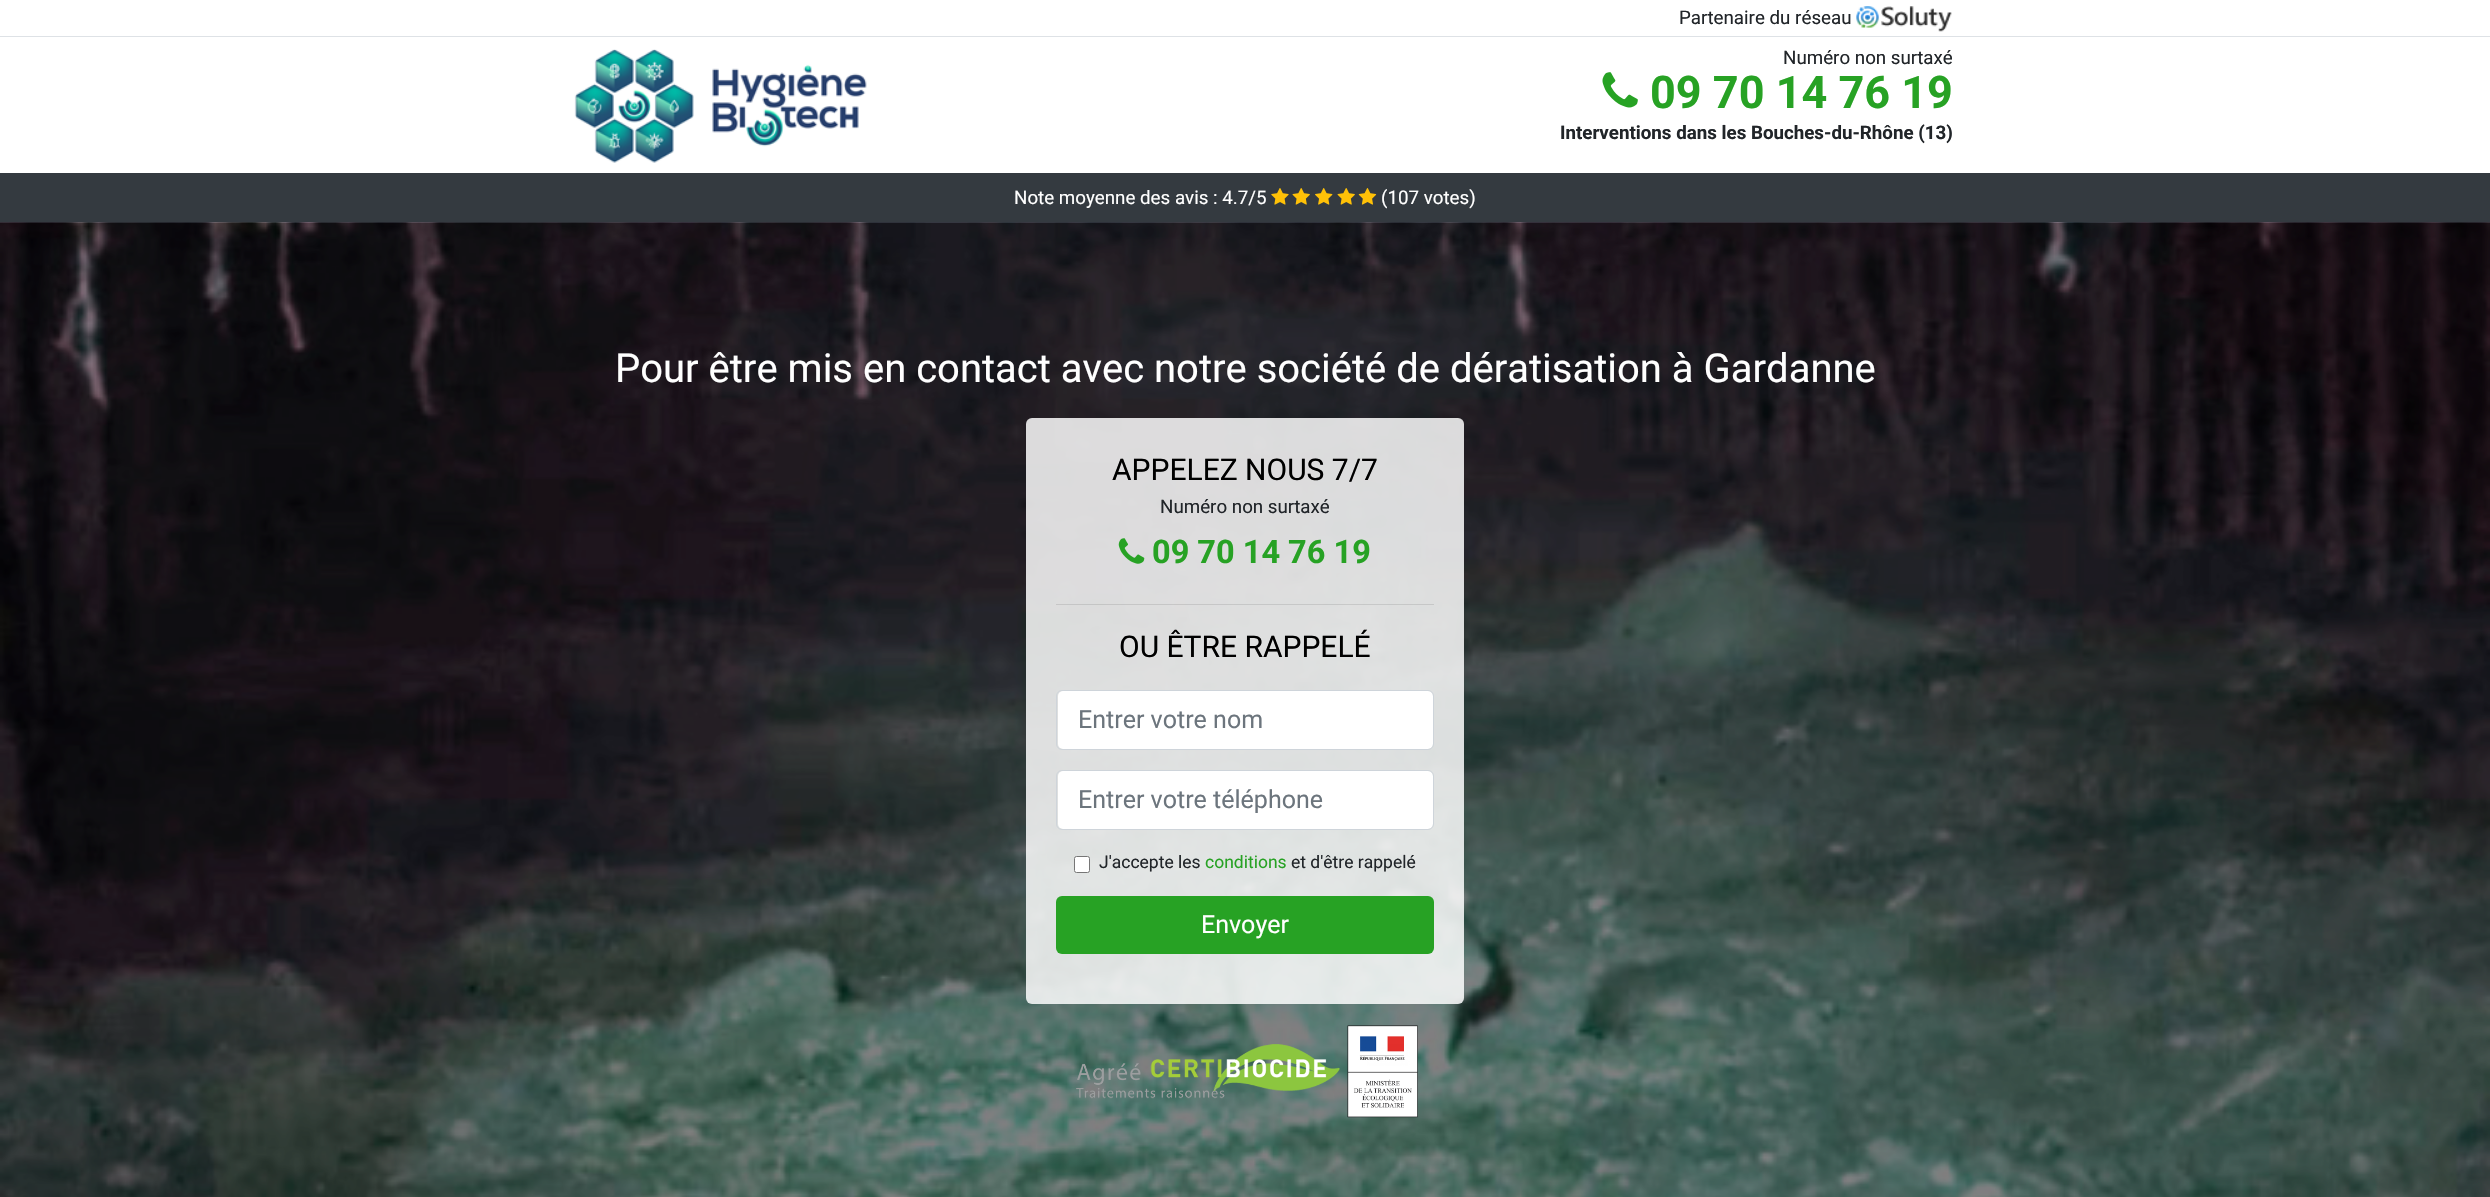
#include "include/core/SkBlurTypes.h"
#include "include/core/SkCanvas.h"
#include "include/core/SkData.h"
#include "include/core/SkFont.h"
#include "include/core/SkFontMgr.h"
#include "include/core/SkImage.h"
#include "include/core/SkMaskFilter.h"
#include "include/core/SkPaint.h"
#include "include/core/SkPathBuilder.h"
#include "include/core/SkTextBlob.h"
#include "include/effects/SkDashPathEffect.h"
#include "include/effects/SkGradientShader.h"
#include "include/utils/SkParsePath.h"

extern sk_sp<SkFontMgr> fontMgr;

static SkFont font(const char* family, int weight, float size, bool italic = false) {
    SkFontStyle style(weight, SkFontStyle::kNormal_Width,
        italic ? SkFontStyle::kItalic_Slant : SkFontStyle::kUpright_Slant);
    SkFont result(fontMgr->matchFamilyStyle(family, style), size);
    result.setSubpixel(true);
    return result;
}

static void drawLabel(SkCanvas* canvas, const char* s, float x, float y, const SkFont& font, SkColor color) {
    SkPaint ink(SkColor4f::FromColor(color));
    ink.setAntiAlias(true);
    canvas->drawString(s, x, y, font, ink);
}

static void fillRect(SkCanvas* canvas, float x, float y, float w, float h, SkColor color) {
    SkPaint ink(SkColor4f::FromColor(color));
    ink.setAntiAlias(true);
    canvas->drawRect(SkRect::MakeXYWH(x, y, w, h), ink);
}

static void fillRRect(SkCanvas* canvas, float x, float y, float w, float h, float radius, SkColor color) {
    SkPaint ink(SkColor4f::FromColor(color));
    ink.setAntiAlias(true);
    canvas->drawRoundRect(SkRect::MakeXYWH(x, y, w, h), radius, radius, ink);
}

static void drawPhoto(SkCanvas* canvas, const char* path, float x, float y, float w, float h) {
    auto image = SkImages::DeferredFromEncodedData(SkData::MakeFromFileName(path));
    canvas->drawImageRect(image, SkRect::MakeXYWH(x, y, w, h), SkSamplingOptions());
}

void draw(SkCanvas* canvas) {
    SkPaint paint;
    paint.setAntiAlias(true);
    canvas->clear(0xFFFFFFFF);
    fillRect(canvas, 0, 36, 2490, 1, 0xFFDEE2E6);
    SkFont font1 = font("Roboto", 400, 18.75f);
    drawLabel(canvas, "Partenaire du réseau", 1679, 24, font1, 0xFF212529);
    drawPhoto(canvas, "assets/img1.png", 1856, 6, 96, 26);
    drawPhoto(canvas, "assets/img2.png", 574, 49, 293, 114);
    drawLabel(canvas, "Numéro non surtaxé", 1783, 64, font1, 0xFF212529);
    drawPhoto(canvas, "assets/img3.png", 1602, 72, 36, 36);
    SkFont font2 = font("Roboto", 700, 45);
    drawLabel(canvas, "09 70 14 76 19", 1650, 108, font2, 0xFF27A224);
    SkFont font3 = font("Roboto", 700, 18.75f);
    drawLabel(canvas, "Interventions dans les Bouches-du-Rhône (13)", 1560, 139, font3, 0xFF212529);
    fillRect(canvas, 0, 173, 2490, 50, 0xFF343A40);
    drawLabel(canvas, "Note moyenne des avis : 4.7/5", 1014, 204, font1, 0xFFFFFFFF);
    drawPhoto(canvas, "assets/img4.png", 1271, 188, 18, 17);
    drawPhoto(canvas, "assets/img5.png", 1292, 188, 18, 17);
    drawPhoto(canvas, "assets/img6.png", 1315, 188, 18, 17);
    drawPhoto(canvas, "assets/img5.png", 1337, 188, 18, 17);
    drawPhoto(canvas, "assets/img7.png", 1358, 188, 19, 17);
    drawLabel(canvas, "(107 votes)", 1381, 204, font1, 0xFFFFFFFF);
    drawPhoto(canvas, "assets/img8.png", 0, 222, 2490, 975);
    SkFont font4 = font("Roboto", 400, 40);
    drawLabel(canvas, "Pour être mis en contact avec notre société de dératisation à Gardanne", 615, 382, font4, 0xFFFFFFFF);
    fillRRect(canvas, 1026, 418, 438, 586, 6, 0xD6FFFFFF);
    SkFont font5 = font("Roboto", 400, 30);
    drawLabel(canvas, "APPELEZ NOUS 7/7", 1112, 480, font5, 0xFF000000);
    drawLabel(canvas, "Numéro non surtaxé", 1160, 513, font1, 0xFF212529);
    drawPhoto(canvas, "assets/img9.png", 1118, 538, 27, 26);
    SkFont font6 = font("Roboto", 700, 32.5f);
    drawLabel(canvas, "09 70 14 76 19", 1152, 563, font6, 0xFF27A224);
    fillRect(canvas, 1056, 604, 378, 1, 0x1A000000);
    drawLabel(canvas, "OU ÊTRE RAPPELÉ", 1119, 657, font5, 0xFF000000);
    fillRRect(canvas, 1058, 691, 375, 58, 5, 0xFFFFFFFF);
    paint.setStroke(true);
    paint.setStrokeWidth(1);
    paint.setColor(0xFFCED4DA);
    canvas->drawRoundRect(SkRect::MakeXYWH(1056.5f, 690.5f, 377, 59), 5.5f, 5.5f, paint);
    SkFont font7 = font("Roboto", 400, 25);
    drawLabel(canvas, "Entrer votre nom", 1078, 728, font7, 0xFF6C757D);
    fillRRect(canvas, 1058, 771, 375, 58, 5, 0xFFFFFFFF);
    canvas->drawRoundRect(SkRect::MakeXYWH(1056.5f, 770.5f, 377, 59), 5.5f, 5.5f, paint);
    drawLabel(canvas, "Entrer votre téléphone", 1078, 808, font7, 0xFF6C757D);
    paint.setStroke(false);
    paint.setColor(0xFFFFFFFF);
    canvas->drawRoundRect(SkRect::MakeXYWH(1074.5f, 856.5f, 15, 16), 2, 2, paint);
    paint.setStroke(true);
    paint.setColor(0xFF767676);
    canvas->drawRoundRect(SkRect::MakeXYWH(1074.5f, 856.5f, 15, 16), 2, 2, paint);
    SkFont font8 = font("Roboto", 400, 17.5f);
    drawLabel(canvas, "J'accepte les", 1099, 868, font8, 0xFF212529);
    drawLabel(canvas, "conditions", 1205, 868, font8, 0xFF27A224);
    drawLabel(canvas, "et d'être rappelé", 1291, 868, font8, 0xFF212529);
    fillRRect(canvas, 1056, 896, 378, 58, 6, 0xFF27A224);
    drawLabel(canvas, "Envoyer", 1201, 933, font7, 0xFFFFFFFF);
    drawPhoto(canvas, "assets/img10.png", 1076, 1025, 342, 93);
}
